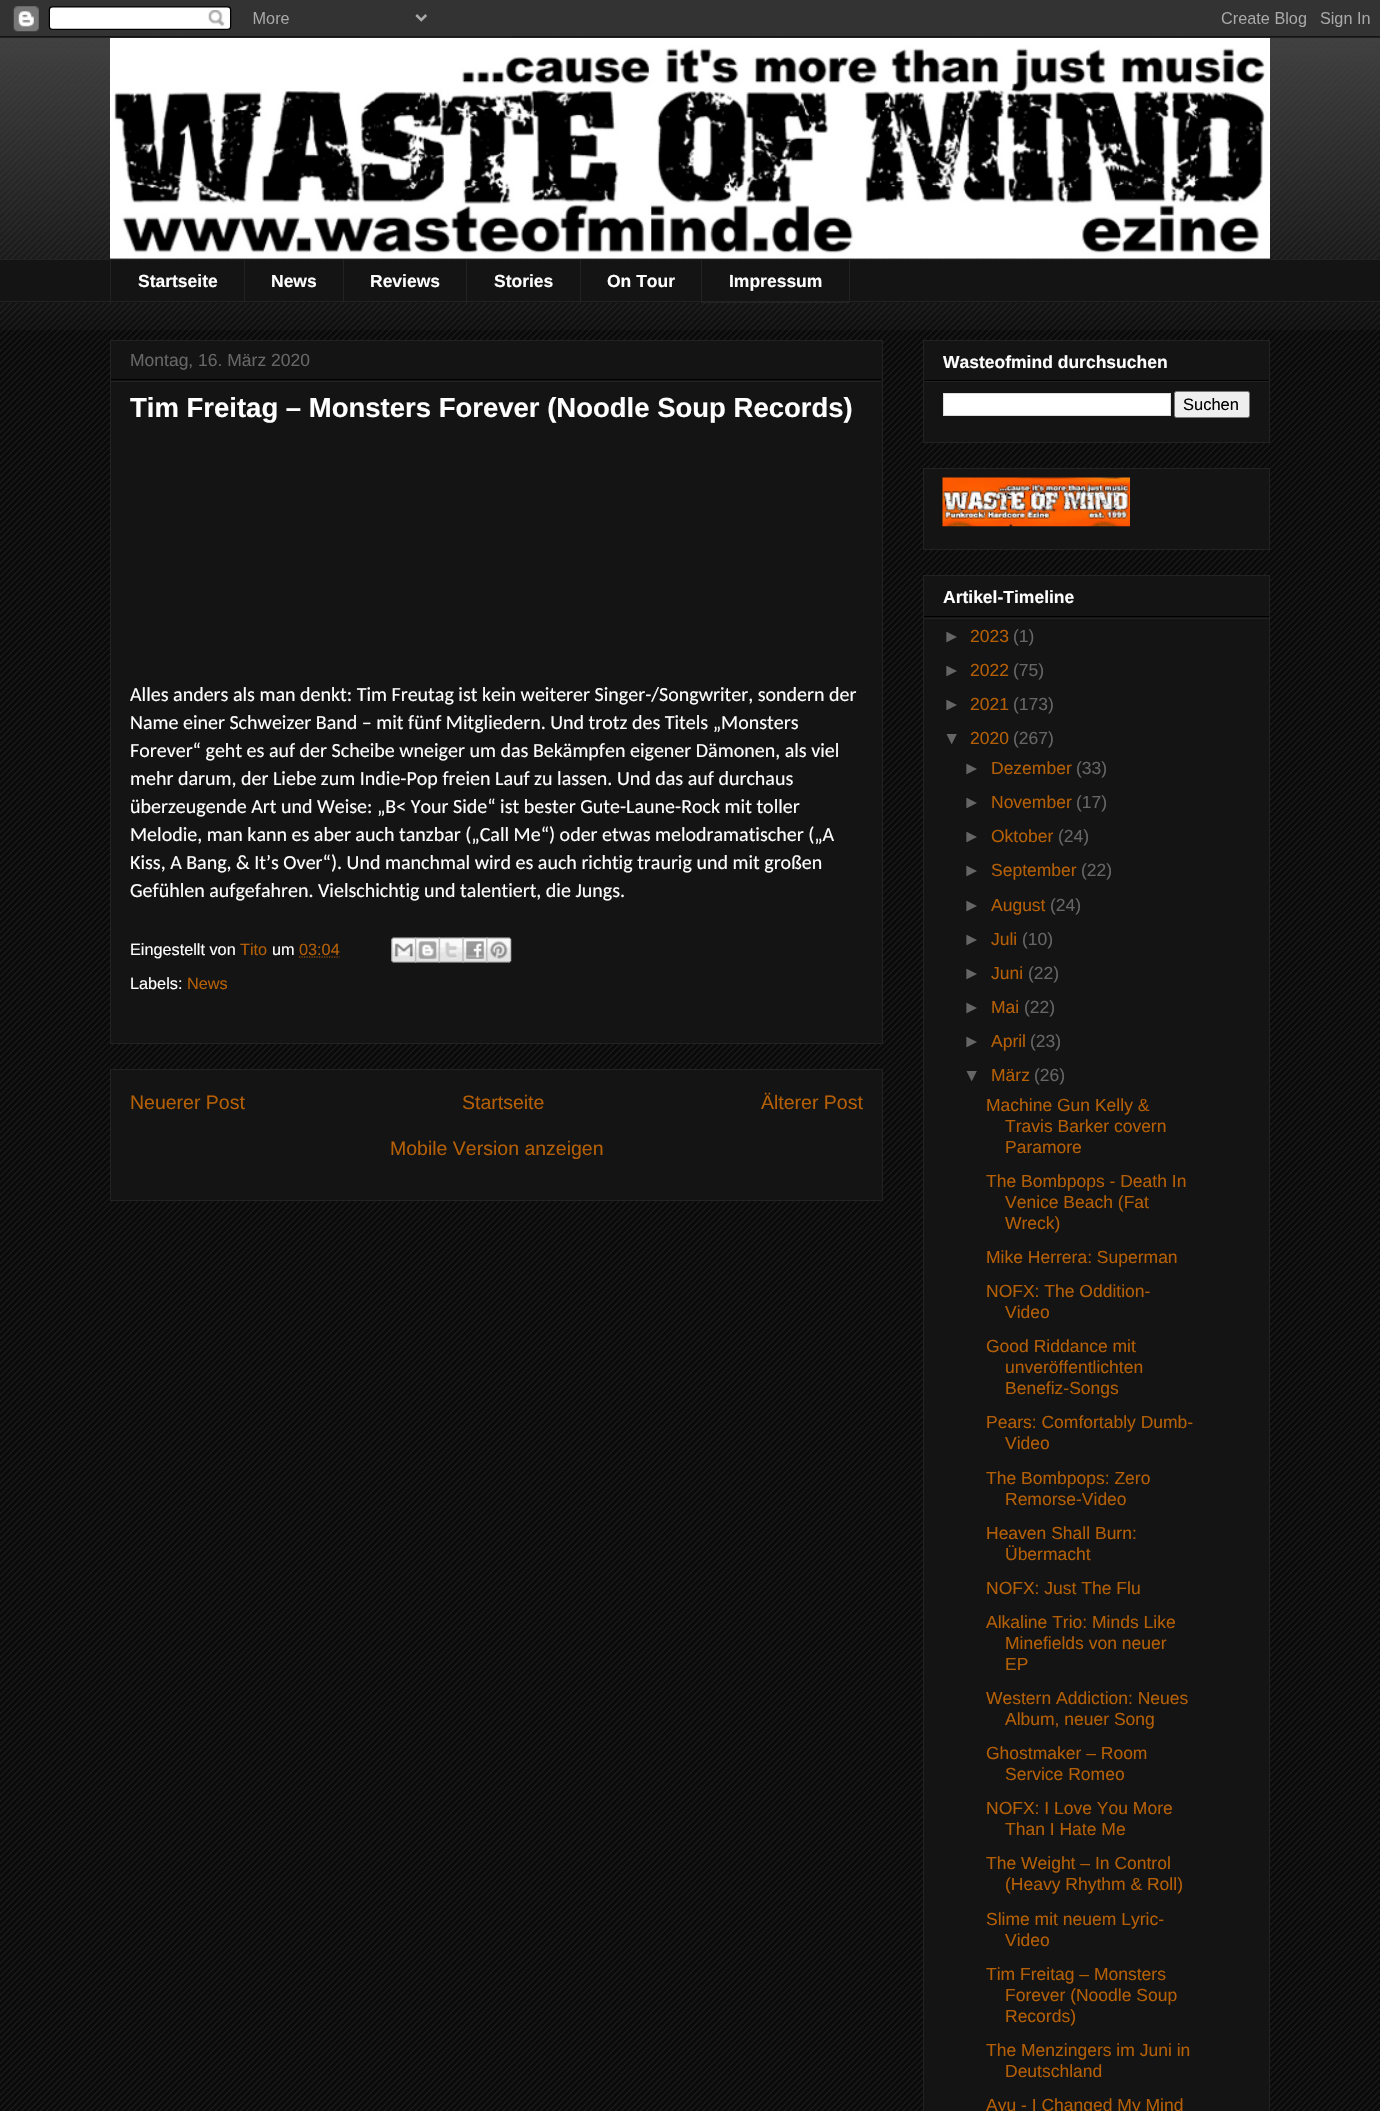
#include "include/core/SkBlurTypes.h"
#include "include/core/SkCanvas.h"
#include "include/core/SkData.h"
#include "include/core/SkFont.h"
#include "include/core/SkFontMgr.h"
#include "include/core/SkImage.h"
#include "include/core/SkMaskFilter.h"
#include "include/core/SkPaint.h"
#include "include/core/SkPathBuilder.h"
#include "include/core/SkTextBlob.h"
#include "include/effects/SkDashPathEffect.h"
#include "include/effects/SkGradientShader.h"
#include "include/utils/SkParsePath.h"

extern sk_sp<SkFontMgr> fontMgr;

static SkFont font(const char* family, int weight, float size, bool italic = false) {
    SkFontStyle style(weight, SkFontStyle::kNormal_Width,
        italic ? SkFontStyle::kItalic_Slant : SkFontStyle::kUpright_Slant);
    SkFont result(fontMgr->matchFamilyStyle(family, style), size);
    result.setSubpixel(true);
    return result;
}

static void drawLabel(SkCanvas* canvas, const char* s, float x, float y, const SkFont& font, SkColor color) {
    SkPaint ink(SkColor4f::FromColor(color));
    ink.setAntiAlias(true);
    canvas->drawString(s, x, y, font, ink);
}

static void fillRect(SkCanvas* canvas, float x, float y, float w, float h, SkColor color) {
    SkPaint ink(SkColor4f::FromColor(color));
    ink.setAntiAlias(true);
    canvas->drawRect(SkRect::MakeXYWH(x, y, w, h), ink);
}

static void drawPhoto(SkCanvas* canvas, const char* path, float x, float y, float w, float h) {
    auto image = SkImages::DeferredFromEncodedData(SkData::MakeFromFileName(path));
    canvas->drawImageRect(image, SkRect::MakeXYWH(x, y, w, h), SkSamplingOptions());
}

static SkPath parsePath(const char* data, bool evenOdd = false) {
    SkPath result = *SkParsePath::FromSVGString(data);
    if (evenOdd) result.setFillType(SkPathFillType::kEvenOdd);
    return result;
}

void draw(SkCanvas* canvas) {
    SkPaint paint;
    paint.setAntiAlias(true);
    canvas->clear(0xFF0A0A0A);
    drawPhoto(canvas, "assets/img1.png", 0, 36, 1380, 2075);
    drawPhoto(canvas, "assets/img3.png", 0, 36, 1380, 294);
    drawPhoto(canvas, "assets/img2.png", 0, 0, 1380, 38);
    drawPhoto(canvas, "assets/img4.png", 110, 38, 1160, 221);
    fillRect(canvas, 0, 260, 1380, 43, 0xFF141414);
    fillRect(canvas, 0, 259, 1380, 1, 0xFF222222);
    fillRect(canvas, 110, 259, 1, 44, 0xFF222222);
    SkFont font1 = font("Liberation Sans", 700, 17.5f);
    drawLabel(canvas, "Startseite", 138, 287, font1, 0xFFFFFFFF);
    fillRect(canvas, 244, 259, 1, 44, 0xFF222222);
    drawLabel(canvas, "News", 271, 287, font1, 0xFFFFFFFF);
    fillRect(canvas, 343, 259, 1, 44, 0xFF222222);
    drawLabel(canvas, "Reviews", 370, 287, font1, 0xFFFFFFFF);
    fillRect(canvas, 466, 259, 1, 44, 0xFF222222);
    drawLabel(canvas, "Stories", 494, 287, font1, 0xFFFFFFFF);
    fillRect(canvas, 580, 259, 1, 44, 0xFF222222);
    drawLabel(canvas, "On Tour", 607, 287, font1, 0xFFFFFFFF);
    paint.setStroke(true);
    paint.setStrokeWidth(1);
    paint.setColor(0xFF222222);
    canvas->drawRect(SkRect::MakeXYWH(701.5f, 259.5f, 148, 43), paint);
    drawLabel(canvas, "Impressum", 729, 287, font1, 0xFFFFFFFF);
    fillRect(canvas, 0, 301, 1380, 1, 0xFF222222);
    paint.setStroke(false);
    paint.setColor(0xFF141414);
    canvas->drawRect(SkRect::MakeXYWH(110.5f, 340.5f, 772, 703), paint);
    paint.setStroke(true);
    paint.setColor(0xFF222222);
    canvas->drawRect(SkRect::MakeXYWH(110.5f, 340.5f, 772, 703), paint);
    fillRect(canvas, 111, 379, 770, 1, 0xFF000000);
    SkFont font2 = font("Liberation Sans", 400, 17.5f);
    drawLabel(canvas, "Montag, 16. März 2020", 130, 366, font2, 0xFF666666);
    fillRect(canvas, 111, 381, 770, 1, 0xFF222222);
    SkFont font3 = font("Liberation Sans", 700, 27.5f);
    drawLabel(canvas, "Tim Freitag – Monsters Forever (Noodle Soup Records)", 130, 417, font3, 0xFFFFFFFF);
    SkFont font4 = font("Carlito", 400, 20);
    drawLabel(canvas, "Alles anders als man denkt: Tim Freutag ist kein weiterer Singer-/Songwriter, sondern der", 130, 701, font4, 0xFFFFFFFF);
    drawLabel(canvas, "Name einer Schweizer Band – mit fünf Mitgliedern. Und trotz des Titels „Monsters", 130, 729, font4, 0xFFFFFFFF);
    drawLabel(canvas, "Forever“ geht es auf der Scheibe wneiger um das Bekämpfen eigener Dämonen, als viel", 130, 757, font4, 0xFFFFFFFF);
    drawLabel(canvas, "mehr darum, der Liebe zum Indie-Pop freien Lauf zu lassen. Und das auf durchaus", 130, 785, font4, 0xFFFFFFFF);
    drawLabel(canvas, "überzeugende Art und Weise: „B< Your Side“ ist bester Gute-Laune-Rock mit toller", 130, 813, font4, 0xFFFFFFFF);
    drawLabel(canvas, "Melodie, man kann es aber auch tanzbar („Call Me“) oder etwas melodramatischer („A", 130, 841, font4, 0xFFFFFFFF);
    drawLabel(canvas, "Kiss, A Bang, & It’s Over“). Und manchmal wird es auch richtig traurig und mit großen", 130, 869, font4, 0xFFFFFFFF);
    drawLabel(canvas, "Gefühlen aufgefahren. Vielschichtig und talentiert, die Jungs.", 130, 897, font4, 0xFFFFFFFF);
    SkFont font5 = font("Liberation Sans", 400, 16.25f);
    drawLabel(canvas, "Eingestellt von", 130, 955, font5, 0xFFFFFFFF);
    drawLabel(canvas, "Tito", 240, 955, font5, 0xFFB45F06);
    drawLabel(canvas, "um", 272, 955, font5, 0xFFFFFFFF);
    drawLabel(canvas, "03:04", 299, 955, font5, 0xFFB45F06);
    paint.setStrokeWidth(1.2f);
    paint.setColor(0xFFB45F06);
    paint.setPathEffect(SkDashPathEffect::Make({{1.25f, 1.25f}}, 0));
    canvas->drawPath(parsePath("M299 957H339.5"), paint);
    paint.setPathEffect(nullptr);
    drawPhoto(canvas, "assets/img5.png", 391, 937, 26, 26);
    drawPhoto(canvas, "assets/img6.png", 415, 937, 25, 26);
    drawPhoto(canvas, "assets/img7.png", 438, 937, 26, 26);
    drawPhoto(canvas, "assets/img8.png", 462, 937, 26, 26);
    drawPhoto(canvas, "assets/img9.png", 486, 937, 26, 26);
    drawLabel(canvas, "Labels:", 130, 989, font5, 0xFFFFFFFF);
    drawLabel(canvas, "News", 187, 989, font5, 0xFFB45F06);
    paint.setStroke(false);
    paint.setColor(0xFF141414);
    canvas->drawRect(SkRect::MakeXYWH(110.5f, 1069.5f, 772, 131), paint);
    paint.setStroke(true);
    paint.setStrokeWidth(1);
    paint.setColor(0xFF222222);
    canvas->drawRect(SkRect::MakeXYWH(110.5f, 1069.5f, 772, 131), paint);
    SkFont font6 = font("Liberation Sans", 400, 19.5f);
    drawLabel(canvas, "Neuerer Post", 130, 1109, font6, 0xFFB45F06);
    drawLabel(canvas, "Startseite", 462, 1109, font6, 0xFFB45F06);
    drawLabel(canvas, "Älterer Post", 761, 1109, font6, 0xFFB45F06);
    drawLabel(canvas, "Mobile Version anzeigen", 390, 1155, font6, 0xFFB45F06);
    paint.setStroke(false);
    paint.setColor(0xFF141414);
    canvas->drawRect(SkRect::MakeXYWH(923.5f, 340.5f, 346, 102), paint);
    paint.setStroke(true);
    paint.setColor(0xFF222222);
    canvas->drawRect(SkRect::MakeXYWH(923.5f, 340.5f, 346, 102), paint);
    fillRect(canvas, 924, 380, 345, 1, 0xFF000000);
    drawLabel(canvas, "Wasteofmind durchsuchen", 943, 368, font1, 0xFFFFFFFF);
    fillRect(canvas, 924, 381, 345, 1, 0xFF222222);
    paint.setStroke(false);
    paint.setColor(0xFFFFFFFF);
    canvas->drawRect(SkRect::MakeXYWH(943.5f, 393.5f, 227, 22), paint);
    paint.setStroke(true);
    paint.setColor(0xFFDDDDDD);
    canvas->drawRect(SkRect::MakeXYWH(943.5f, 393.5f, 227, 22), paint);
    paint.setStroke(false);
    paint.setColor(0xFFEFEFEF);
    canvas->drawRoundRect(SkRect::MakeXYWH(1174.5f, 391.5f, 75, 26), 2, 2, paint);
    paint.setStroke(true);
    paint.setColor(0xFF767676);
    canvas->drawRoundRect(SkRect::MakeXYWH(1174.5f, 391.5f, 75, 26), 2, 2, paint);
    SkFont font7 = font("Liberation Sans", 400, 16.5f);
    drawLabel(canvas, "Suchen", 1183, 410, font7, 0xFF000000);
    paint.setStroke(false);
    paint.setColor(0xFF141414);
    canvas->drawRect(SkRect::MakeXYWH(923.5f, 468.5f, 346, 81), paint);
    paint.setStroke(true);
    paint.setColor(0xFF222222);
    canvas->drawRect(SkRect::MakeXYWH(923.5f, 468.5f, 346, 81), paint);
    drawPhoto(canvas, "assets/img10.png", 942, 477, 188, 50);
    paint.setStroke(false);
    paint.setColor(0xFF141414);
    canvas->drawRect(SkRect::MakeXYWH(923.5f, 575.5f, 346, 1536), paint);
    paint.setStroke(true);
    paint.setColor(0xFF222222);
    canvas->drawRect(SkRect::MakeXYWH(923.5f, 575.5f, 346, 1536), paint);
    fillRect(canvas, 924, 616, 345, 1, 0xFF000000);
    drawLabel(canvas, "Artikel-Timeline", 943, 603, font1, 0xFFFFFFFF);
    fillRect(canvas, 924, 618, 345, 1, 0xFF222222);
    drawLabel(canvas, "►", 943, 642, font2, 0xFF666666);
    drawLabel(canvas, "2023", 970, 642, font2, 0xFFB45F06);
    drawLabel(canvas, "(1)", 1013, 642, font2, 0xFF666666);
    drawLabel(canvas, "►", 943, 676, font2, 0xFF666666);
    drawLabel(canvas, "2022", 970, 676, font2, 0xFFB45F06);
    drawLabel(canvas, "(75)", 1013, 676, font2, 0xFF666666);
    drawLabel(canvas, "►", 943, 710, font2, 0xFF666666);
    drawLabel(canvas, "2021", 970, 710, font2, 0xFFB45F06);
    drawLabel(canvas, "(173)", 1013, 710, font2, 0xFF666666);
    drawLabel(canvas, "▼", 943, 744, font2, 0xFF666666);
    drawLabel(canvas, "2020", 970, 744, font2, 0xFFB45F06);
    drawLabel(canvas, "(267)", 1013, 744, font2, 0xFF666666);
    drawLabel(canvas, "►", 963, 774, font2, 0xFF666666);
    drawLabel(canvas, "Dezember", 991, 774, font2, 0xFFB45F06);
    drawLabel(canvas, "(33)", 1076, 774, font2, 0xFF666666);
    drawLabel(canvas, "►", 963, 808, font2, 0xFF666666);
    drawLabel(canvas, "November", 991, 808, font2, 0xFFB45F06);
    drawLabel(canvas, "(17)", 1076, 808, font2, 0xFF666666);
    drawLabel(canvas, "►", 963, 842, font2, 0xFF666666);
    drawLabel(canvas, "Oktober", 991, 842, font2, 0xFFB45F06);
    drawLabel(canvas, "(24)", 1058, 842, font2, 0xFF666666);
    drawLabel(canvas, "►", 963, 876, font2, 0xFF666666);
    drawLabel(canvas, "September", 991, 876, font2, 0xFFB45F06);
    drawLabel(canvas, "(22)", 1081, 876, font2, 0xFF666666);
    drawLabel(canvas, "►", 963, 911, font2, 0xFF666666);
    drawLabel(canvas, "August", 991, 911, font2, 0xFFB45F06);
    drawLabel(canvas, "(24)", 1050, 911, font2, 0xFF666666);
    drawLabel(canvas, "►", 963, 945, font2, 0xFF666666);
    drawLabel(canvas, "Juli", 991, 945, font2, 0xFFB45F06);
    drawLabel(canvas, "(10)", 1022, 945, font2, 0xFF666666);
    drawLabel(canvas, "►", 963, 979, font2, 0xFF666666);
    drawLabel(canvas, "Juni", 991, 979, font2, 0xFFB45F06);
    drawLabel(canvas, "(22)", 1028, 979, font2, 0xFF666666);
    drawLabel(canvas, "►", 963, 1013, font2, 0xFF666666);
    drawLabel(canvas, "Mai", 991, 1013, font2, 0xFFB45F06);
    drawLabel(canvas, "(22)", 1024, 1013, font2, 0xFF666666);
    drawLabel(canvas, "►", 963, 1047, font2, 0xFF666666);
    drawLabel(canvas, "April", 991, 1047, font2, 0xFFB45F06);
    drawLabel(canvas, "(23)", 1030, 1047, font2, 0xFF666666);
    drawLabel(canvas, "▼", 963, 1081, font2, 0xFF666666);
    drawLabel(canvas, "März", 991, 1081, font2, 0xFFB45F06);
    drawLabel(canvas, "(26)", 1034, 1081, font2, 0xFF666666);
    drawLabel(canvas, "Machine Gun Kelly &", 986, 1111, font2, 0xFFB45F06);
    drawLabel(canvas, "Travis Barker covern", 1005, 1132, font2, 0xFFB45F06);
    drawLabel(canvas, "Paramore", 1005, 1153, font2, 0xFFB45F06);
    drawLabel(canvas, "The Bombpops - Death In", 986, 1187, font2, 0xFFB45F06);
    drawLabel(canvas, "Venice Beach (Fat", 1005, 1208, font2, 0xFFB45F06);
    drawLabel(canvas, "Wreck)", 1005, 1229, font2, 0xFFB45F06);
    drawLabel(canvas, "Mike Herrera: Superman", 986, 1263, font2, 0xFFB45F06);
    drawLabel(canvas, "NOFX: The Oddition-", 986, 1297, font2, 0xFFB45F06);
    drawLabel(canvas, "Video", 1005, 1318, font2, 0xFFB45F06);
    drawLabel(canvas, "Good Riddance mit", 986, 1352, font2, 0xFFB45F06);
    drawLabel(canvas, "unveröffentlichten", 1005, 1373, font2, 0xFFB45F06);
    drawLabel(canvas, "Benefiz-Songs", 1005, 1394, font2, 0xFFB45F06);
    drawLabel(canvas, "Pears: Comfortably Dumb-", 986, 1428, font2, 0xFFB45F06);
    drawLabel(canvas, "Video", 1005, 1449, font2, 0xFFB45F06);
    drawLabel(canvas, "The Bombpops: Zero", 986, 1484, font2, 0xFFB45F06);
    drawLabel(canvas, "Remorse-Video", 1005, 1505, font2, 0xFFB45F06);
    drawLabel(canvas, "Heaven Shall Burn:", 986, 1539, font2, 0xFFB45F06);
    drawLabel(canvas, "Übermacht", 1005, 1560, font2, 0xFFB45F06);
    drawLabel(canvas, "NOFX: Just The Flu", 986, 1594, font2, 0xFFB45F06);
    drawLabel(canvas, "Alkaline Trio: Minds Like", 986, 1628, font2, 0xFFB45F06);
    drawLabel(canvas, "Minefields von neuer", 1005, 1649, font2, 0xFFB45F06);
    drawLabel(canvas, "EP", 1005, 1670, font2, 0xFFB45F06);
    drawLabel(canvas, "Western Addiction: Neues", 986, 1704, font2, 0xFFB45F06);
    drawLabel(canvas, "Album, neuer Song", 1005, 1725, font2, 0xFFB45F06);
    drawLabel(canvas, "Ghostmaker – Room", 986, 1759, font2, 0xFFB45F06);
    drawLabel(canvas, "Service Romeo", 1005, 1780, font2, 0xFFB45F06);
    drawLabel(canvas, "NOFX: I Love You More", 986, 1814, font2, 0xFFB45F06);
    drawLabel(canvas, "Than I Hate Me", 1005, 1835, font2, 0xFFB45F06);
    drawLabel(canvas, "The Weight – In Control", 986, 1869, font2, 0xFFB45F06);
    drawLabel(canvas, "(Heavy Rhythm & Roll)", 1005, 1890, font2, 0xFFB45F06);
    drawLabel(canvas, "Slime mit neuem Lyric-", 986, 1925, font2, 0xFFB45F06);
    drawLabel(canvas, "Video", 1005, 1946, font2, 0xFFB45F06);
    drawLabel(canvas, "Tim Freitag – Monsters", 986, 1980, font2, 0xFFB45F06);
    drawLabel(canvas, "Forever (Noodle Soup", 1005, 2001, font2, 0xFFB45F06);
    drawLabel(canvas, "Records)", 1005, 2022, font2, 0xFFB45F06);
    drawLabel(canvas, "The Menzingers im Juni in", 986, 2056, font2, 0xFFB45F06);
    drawLabel(canvas, "Deutschland", 1005, 2077, font2, 0xFFB45F06);
    drawLabel(canvas, "Ayu - I Changed My Mind", 986, 2111, font2, 0xFFB45F06);
}
